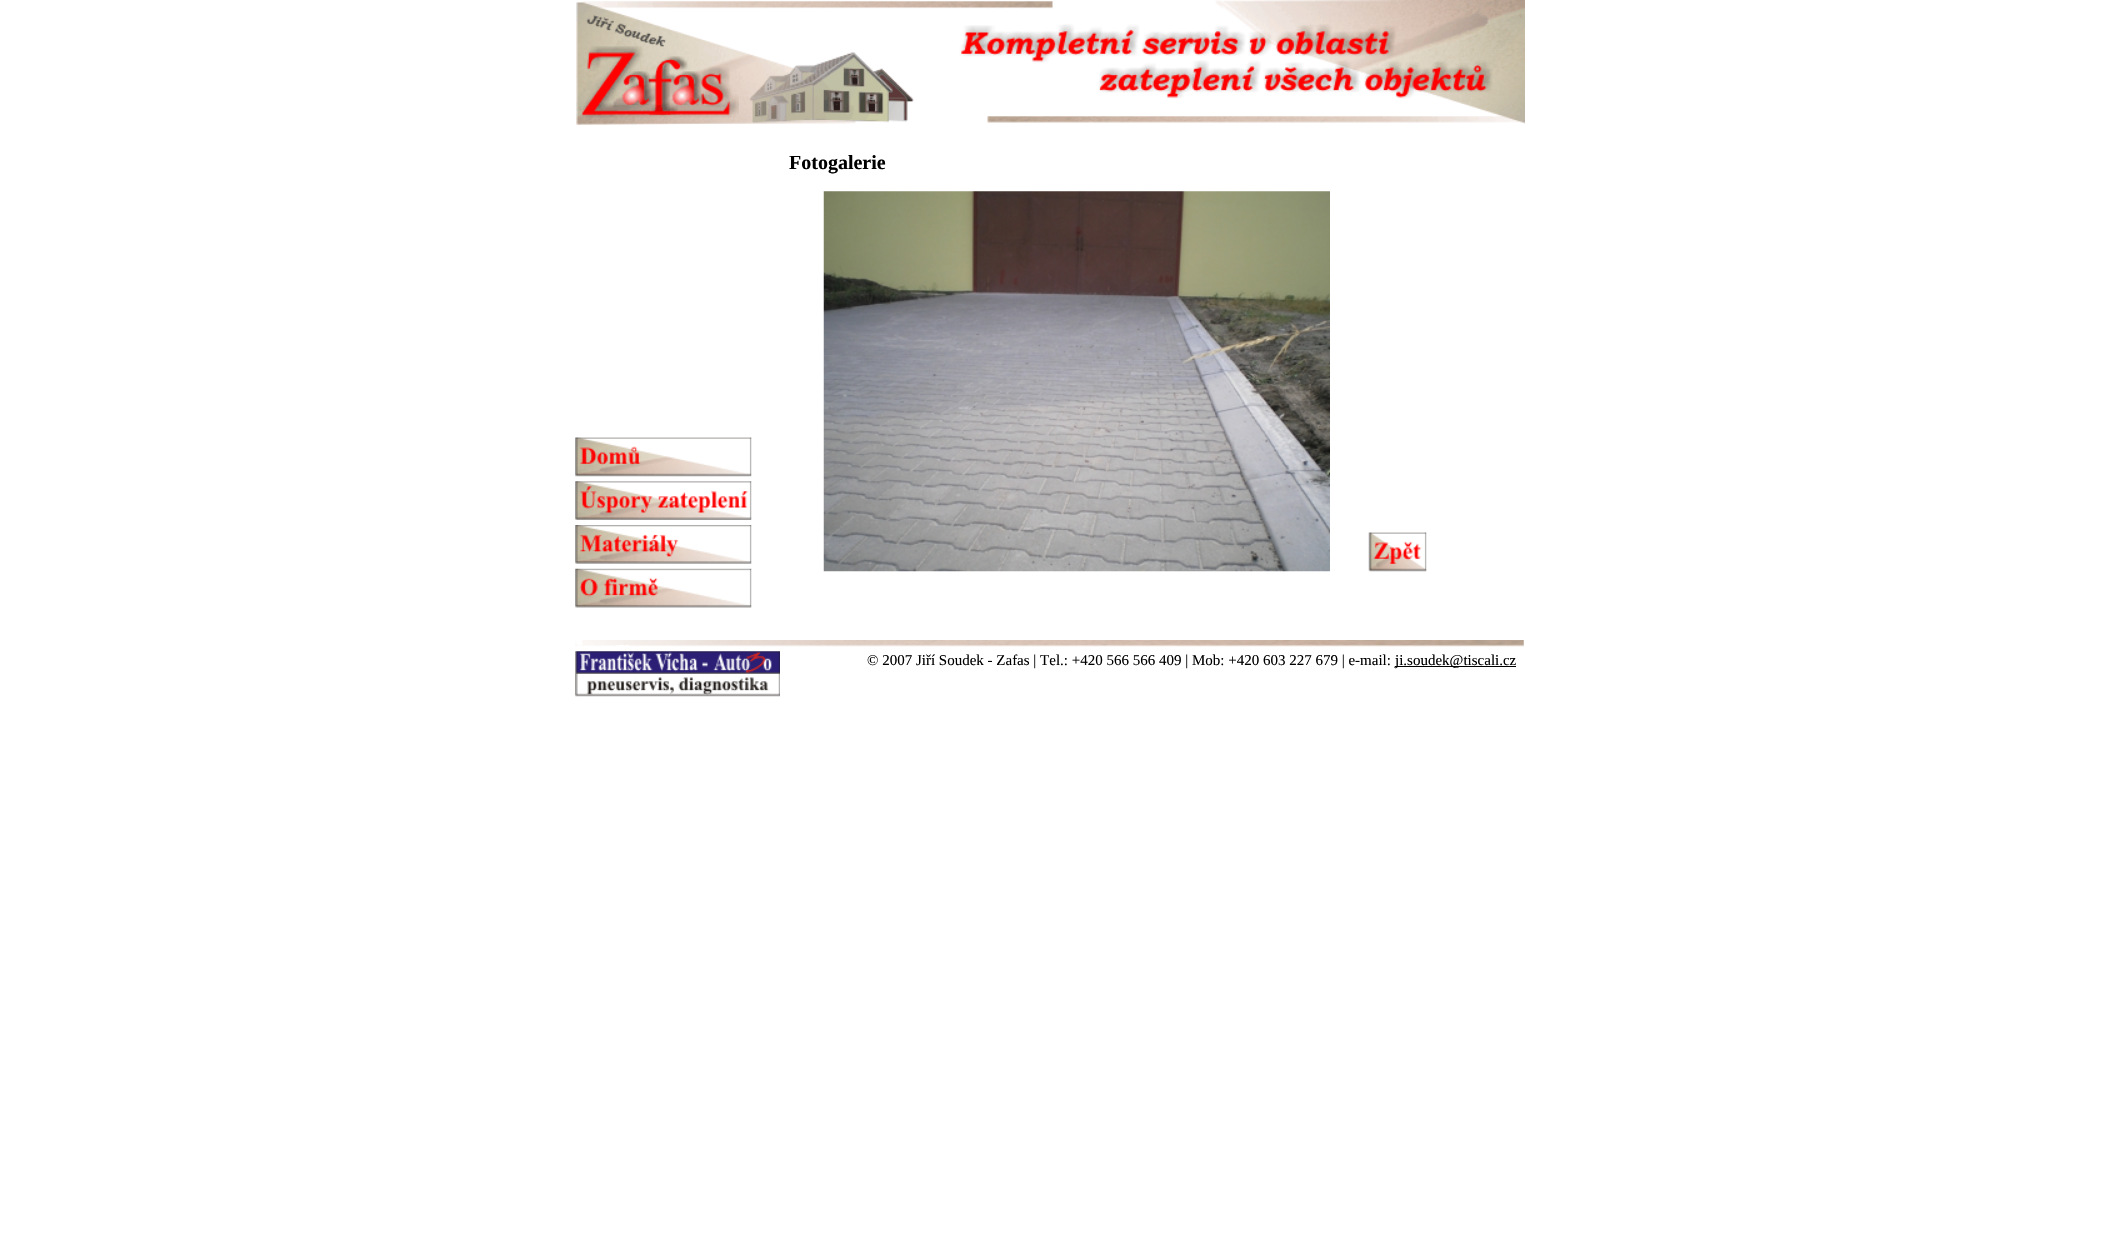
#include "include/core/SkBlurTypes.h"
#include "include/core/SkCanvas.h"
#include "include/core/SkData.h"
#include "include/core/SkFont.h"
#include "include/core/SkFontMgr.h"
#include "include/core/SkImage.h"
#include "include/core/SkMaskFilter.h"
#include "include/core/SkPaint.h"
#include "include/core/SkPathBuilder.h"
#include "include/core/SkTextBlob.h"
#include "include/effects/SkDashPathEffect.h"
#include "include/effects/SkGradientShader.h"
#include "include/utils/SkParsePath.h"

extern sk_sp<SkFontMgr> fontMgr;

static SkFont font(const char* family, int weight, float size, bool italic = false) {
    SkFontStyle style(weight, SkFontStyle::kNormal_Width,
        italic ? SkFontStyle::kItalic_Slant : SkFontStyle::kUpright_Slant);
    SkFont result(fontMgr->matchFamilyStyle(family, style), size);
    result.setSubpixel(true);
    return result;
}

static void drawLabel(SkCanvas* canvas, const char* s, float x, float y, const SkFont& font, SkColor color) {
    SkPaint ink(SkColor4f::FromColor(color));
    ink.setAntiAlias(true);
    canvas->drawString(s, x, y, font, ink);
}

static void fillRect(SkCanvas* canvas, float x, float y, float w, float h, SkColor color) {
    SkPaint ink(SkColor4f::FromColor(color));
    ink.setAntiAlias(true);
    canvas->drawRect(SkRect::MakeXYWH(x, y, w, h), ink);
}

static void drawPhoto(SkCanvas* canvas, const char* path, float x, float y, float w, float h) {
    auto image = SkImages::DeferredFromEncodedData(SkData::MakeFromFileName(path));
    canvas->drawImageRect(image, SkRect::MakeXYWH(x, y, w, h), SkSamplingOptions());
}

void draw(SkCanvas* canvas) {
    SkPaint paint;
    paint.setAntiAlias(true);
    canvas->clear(0xFFFFFFFF);
    drawPhoto(canvas, "assets/img1.png", 576, 0, 949, 125);
    SkFont font1 = font("Liberation Serif", 700, 20);
    drawLabel(canvas, "Fotogalerie", 789, 169, font1, 0xFF000000);
    drawPhoto(canvas, "assets/img2.png", 1368, 532, 59, 40);
    drawPhoto(canvas, "assets/img3.png", 823, 191, 507, 381);
    drawPhoto(canvas, "assets/img4.png", 575, 437, 177, 40);
    drawPhoto(canvas, "assets/img5.png", 575, 481, 177, 39);
    drawPhoto(canvas, "assets/img6.png", 575, 525, 177, 39);
    drawPhoto(canvas, "assets/img7.png", 575, 568, 177, 40);
    drawPhoto(canvas, "assets/img8.png", 575, 640, 949, 7);
    drawPhoto(canvas, "assets/img9.png", 575, 651, 205, 46);
    SkFont font2 = font("Liberation Serif", 400, 15);
    drawLabel(canvas, "© 2007 Jiří Soudek - Zafas | Tel.: +420 566 566 409 | Mob: +420 603 227 679 | e-mail:", 867, 665, font2, 0xFF000000);
    fillRect(canvas, 1395, 666, 121, 1, 0xFF000000);
    drawLabel(canvas, "ji.soudek@tiscali.cz", 1395, 665, font2, 0xFF000000);
}
